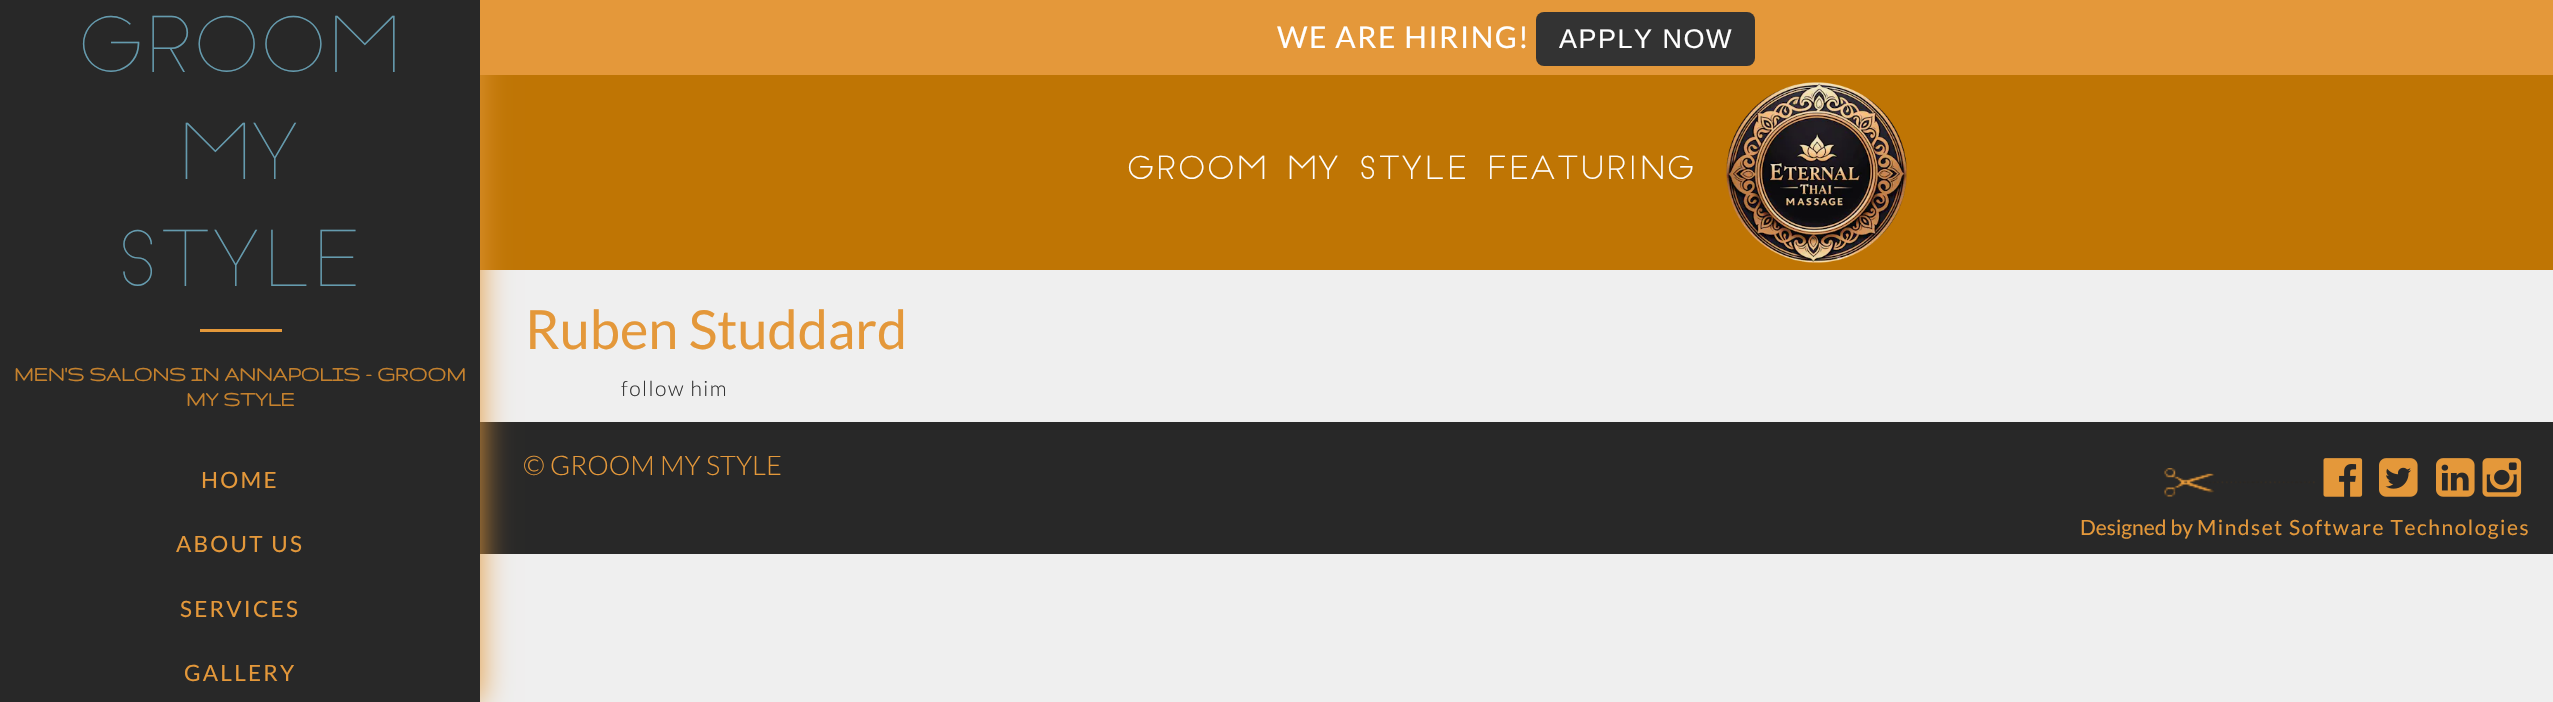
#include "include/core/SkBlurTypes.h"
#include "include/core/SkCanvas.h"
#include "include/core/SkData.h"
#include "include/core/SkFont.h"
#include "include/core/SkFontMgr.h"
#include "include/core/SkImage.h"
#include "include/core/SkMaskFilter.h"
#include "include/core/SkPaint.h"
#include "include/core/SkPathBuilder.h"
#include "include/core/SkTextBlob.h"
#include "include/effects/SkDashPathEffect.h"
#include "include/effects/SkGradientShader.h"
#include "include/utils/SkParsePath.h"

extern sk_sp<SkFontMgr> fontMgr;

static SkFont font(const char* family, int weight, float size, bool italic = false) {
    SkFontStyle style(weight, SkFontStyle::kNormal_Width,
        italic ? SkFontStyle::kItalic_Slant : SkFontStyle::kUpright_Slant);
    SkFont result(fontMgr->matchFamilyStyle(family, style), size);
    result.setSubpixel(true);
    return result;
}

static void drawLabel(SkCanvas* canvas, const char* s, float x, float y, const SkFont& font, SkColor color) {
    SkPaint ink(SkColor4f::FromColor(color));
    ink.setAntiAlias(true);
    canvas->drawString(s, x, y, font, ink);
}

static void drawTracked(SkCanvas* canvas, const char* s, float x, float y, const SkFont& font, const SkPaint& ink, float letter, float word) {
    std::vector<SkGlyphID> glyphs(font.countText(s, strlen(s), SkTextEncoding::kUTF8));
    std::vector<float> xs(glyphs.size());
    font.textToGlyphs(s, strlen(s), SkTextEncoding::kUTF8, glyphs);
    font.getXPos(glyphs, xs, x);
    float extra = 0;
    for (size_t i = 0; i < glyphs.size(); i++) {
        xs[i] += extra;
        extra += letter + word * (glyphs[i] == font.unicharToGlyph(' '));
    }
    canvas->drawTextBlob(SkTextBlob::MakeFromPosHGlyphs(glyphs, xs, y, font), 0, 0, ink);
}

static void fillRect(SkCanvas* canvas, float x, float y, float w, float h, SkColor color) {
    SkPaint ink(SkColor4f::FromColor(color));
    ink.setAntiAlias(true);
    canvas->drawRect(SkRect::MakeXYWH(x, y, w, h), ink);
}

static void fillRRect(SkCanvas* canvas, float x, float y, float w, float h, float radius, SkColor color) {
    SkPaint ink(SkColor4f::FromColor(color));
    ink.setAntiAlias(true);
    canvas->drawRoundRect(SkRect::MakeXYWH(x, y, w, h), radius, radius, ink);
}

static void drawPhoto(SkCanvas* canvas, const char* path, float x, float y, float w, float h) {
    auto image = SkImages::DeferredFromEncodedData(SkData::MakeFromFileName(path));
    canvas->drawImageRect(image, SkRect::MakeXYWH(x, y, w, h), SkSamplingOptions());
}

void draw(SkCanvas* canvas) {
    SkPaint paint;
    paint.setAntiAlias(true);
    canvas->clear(0xFFEFEFEF);
    fillRect(canvas, 480, 0, 2073, 75, 0xFFE4983A);
    fillRect(canvas, 480, 75, 2073, 195, 0xFFBF7504);
    fillRect(canvas, 480, 422, 2073, 132, 0xFF282828);
    paint.setColor(0xFFE4983A);
    paint.setMaskFilter(SkMaskFilter::MakeBlur(kNormal_SkBlurStyle, 15));
    canvas->drawRect(SkRect::MakeXYWH(0, 0, 480, 702), paint);
    paint.setMaskFilter(nullptr);
    fillRect(canvas, 0, 0, 480, 702, 0xFF282828);
    SkFont font1 = font("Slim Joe", 400, 75);
    paint.setColor(0xFF659BAE);
    drawTracked(canvas, "GROOM", 78, 72, font1, paint, 1.5f, 0);
    drawTracked(canvas, "MY", 178, 179, font1, paint, 1.5f, 0);
    drawTracked(canvas, "STYLE", 118, 286, font1, paint, 1.5f, 0);
    fillRect(canvas, 200, 329, 82, 3, 0xFFE4983A);
    SkFont font2 = font("Gruppo", 700, 22.5f);
    drawLabel(canvas, "MEN'S SALONS IN ANNAPOLIS - GROOM", 14, 381, font2, 0xFFC5812D);
    drawLabel(canvas, "MY STYLE", 186, 406, font2, 0xFFC5812D);
    SkFont font3 = font("Lato", 400, 22.5f);
    paint.setColor(0xFFE4983A);
    drawTracked(canvas, "HOME", 201, 488, font3, paint, 2.25f, 0);
    drawTracked(canvas, "ABOUT US", 176, 552, font3, paint, 2.25f, 0);
    drawTracked(canvas, "SERVICES", 180, 617, font3, paint, 2.25f, 0);
    canvas->save();
    canvas->clipRect(SkRect::MakeXYWH(185, 650, 111, 45));
    drawTracked(canvas, "GALLERY", 184, 681, font3, paint, 2.25f, 0);
    canvas->restore();
    SkFont font4 = font("Lato", 400, 30);
    paint.setColor(0xFFFFFFFF);
    drawTracked(canvas, "WE ARE HIRING!", 1277, 48, font4, paint, 1.5f, 0);
    fillRRect(canvas, 1536, 12, 219, 54, 8, 0xFF333333);
    SkFont font5 = font("Liberation Sans", 400, 27);
    drawTracked(canvas, "APPLY NOW", 1559, 48, font5, paint, 1.5f, 0);
    SkFont font6 = font("Slim Joe", 700, 30);
    drawTracked(canvas, "GROOM MY STYLE FEATURING", 1127, 179, font6, paint, 3, 0);
    drawPhoto(canvas, "assets/img1.png", 1726, 82, 181, 181);
    SkFont font7 = font("Lato", 400, 54);
    drawLabel(canvas, "Ruben Studdard", 525, 349, font7, 0xFFE4983A);
    SkFont font8 = font("Lato", 300, 21);
    paint.setColor(0xFF333333);
    drawTracked(canvas, "follow him", 621, 396, font8, paint, 1.5f, 0);
    SkFont font9 = font("Lato", 300, 27);
    drawLabel(canvas, "© GROOM MY STYLE", 523, 475, font9, 0xFFE4983A);
    drawPhoto(canvas, "assets/img2.png", 2164, 468, 151, 29);
    drawPhoto(canvas, "assets/img3.png", 2323, 458, 40, 39);
    drawPhoto(canvas, "assets/img4.png", 2379, 458, 39, 39);
    drawPhoto(canvas, "assets/img5.png", 2436, 458, 39, 39);
    drawPhoto(canvas, "assets/img6.png", 2482, 458, 40, 39);
    SkFont font10 = font("Lato", 400, 21);
    drawLabel(canvas, "Designed by", 2080, 535, font10, 0xFFE4983A);
    paint.setColor(0xFFE4983A);
    drawTracked(canvas, "Mindset Software Technologies", 2197, 535, font10, paint, 1.5f, 0);
}
